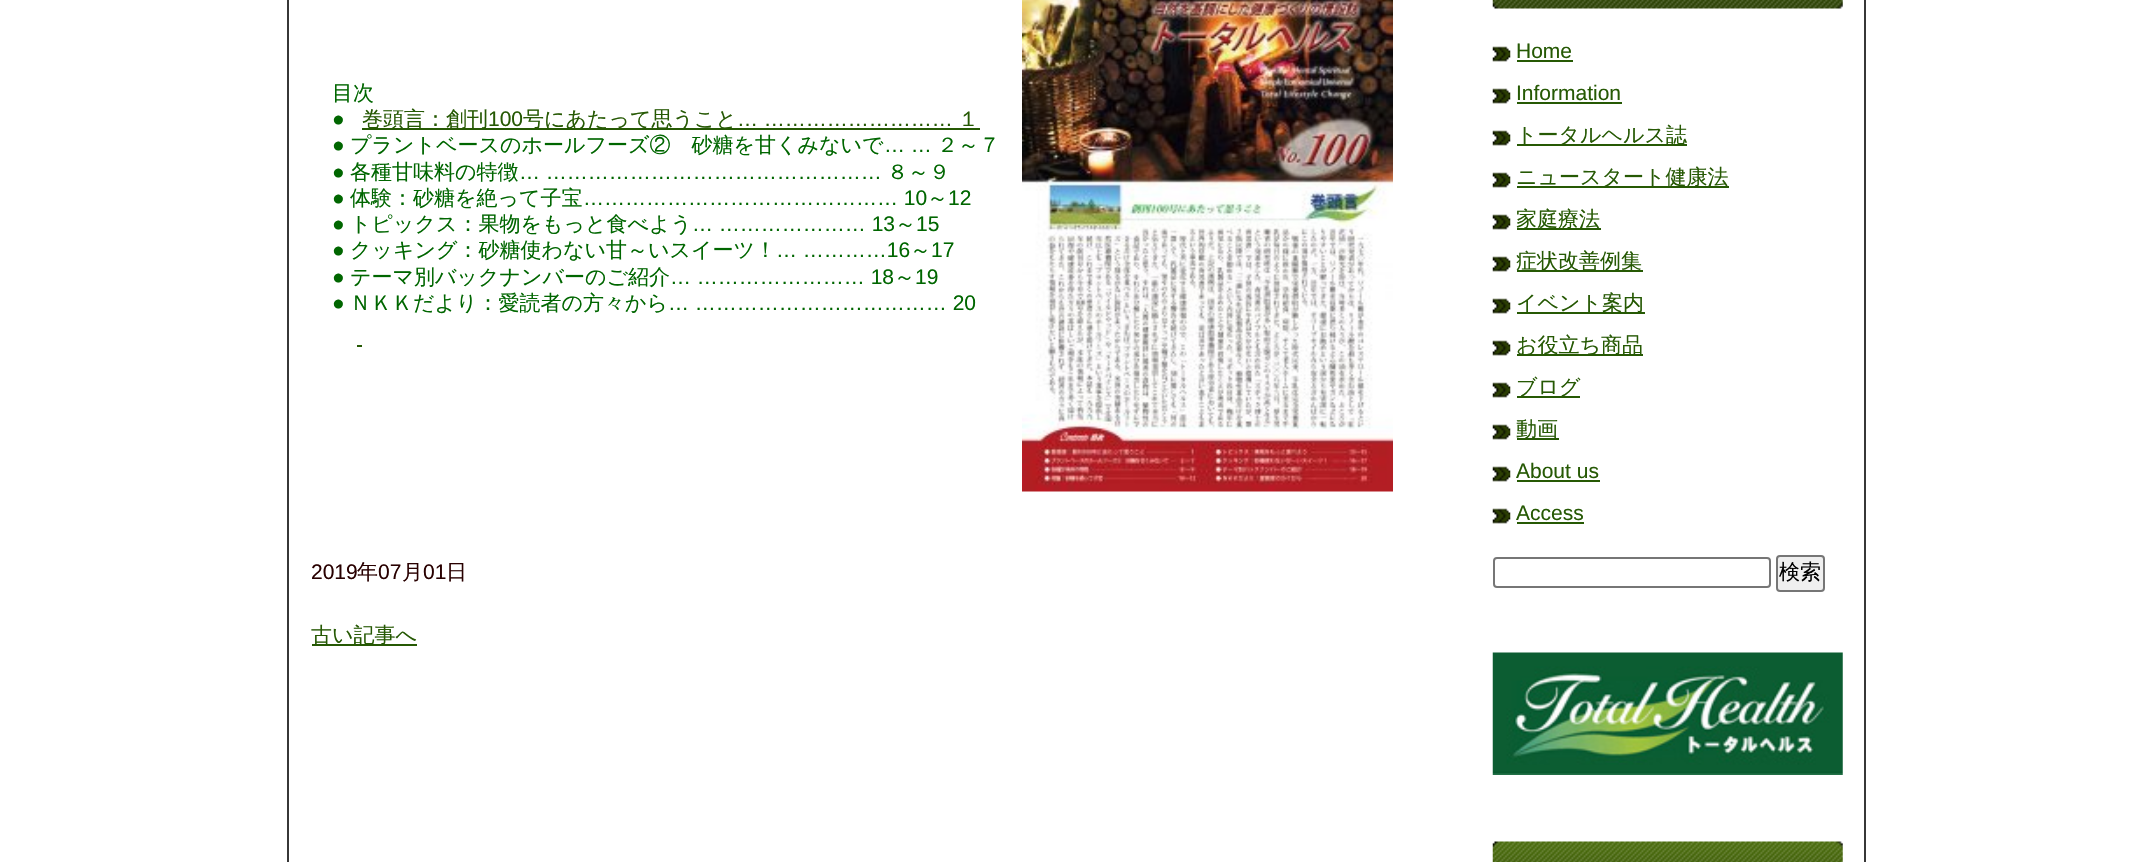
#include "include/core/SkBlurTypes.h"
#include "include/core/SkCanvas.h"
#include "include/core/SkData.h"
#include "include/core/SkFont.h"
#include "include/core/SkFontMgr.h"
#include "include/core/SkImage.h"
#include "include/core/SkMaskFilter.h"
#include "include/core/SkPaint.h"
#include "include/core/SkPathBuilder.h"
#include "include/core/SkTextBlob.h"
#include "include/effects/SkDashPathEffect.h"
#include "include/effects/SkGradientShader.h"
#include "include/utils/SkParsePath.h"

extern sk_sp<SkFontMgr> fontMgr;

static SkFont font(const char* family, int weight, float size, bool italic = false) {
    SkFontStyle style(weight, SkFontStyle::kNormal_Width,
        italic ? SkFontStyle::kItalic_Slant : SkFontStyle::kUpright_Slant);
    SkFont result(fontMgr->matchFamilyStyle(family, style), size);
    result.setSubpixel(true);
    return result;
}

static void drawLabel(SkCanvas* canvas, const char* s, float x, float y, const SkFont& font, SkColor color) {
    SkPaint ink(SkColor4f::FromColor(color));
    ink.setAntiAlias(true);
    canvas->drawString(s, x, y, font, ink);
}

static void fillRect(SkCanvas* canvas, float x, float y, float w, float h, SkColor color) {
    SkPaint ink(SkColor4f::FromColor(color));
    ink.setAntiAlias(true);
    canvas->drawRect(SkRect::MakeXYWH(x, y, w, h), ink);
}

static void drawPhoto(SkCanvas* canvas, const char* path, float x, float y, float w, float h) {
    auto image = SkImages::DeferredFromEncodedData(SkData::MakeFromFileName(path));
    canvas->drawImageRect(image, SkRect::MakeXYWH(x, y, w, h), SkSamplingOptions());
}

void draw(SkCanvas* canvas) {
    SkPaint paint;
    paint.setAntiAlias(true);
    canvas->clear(0xFFFFFFFF);
    fillRect(canvas, 1864, 0, 2, 862, 0xFF373737);
    fillRect(canvas, 287, 0, 2, 862, 0xFF373737);
    SkFont font1 = font("WenQuanYi Zen Hei", 500, 21);
    drawLabel(canvas, "目次", 332, 100, font1, 0xFF006600);
    SkFont font2 = font("Liberation Sans", 400, 21);
    drawLabel(canvas, "●", 332, 126, font2, 0xFF006600);
    fillRect(canvas, 362, 128, 618, 2, 0xFF265904);
    drawLabel(canvas, "巻頭言：創刊", 362, 126, font1, 0xFF265904);
    drawLabel(canvas, "100", 488, 126, font2, 0xFF265904);
    drawLabel(canvas, "号にあたって思うこと", 523, 126, font1, 0xFF265904);
    drawLabel(canvas, "… ………………………", 737, 126, font2, 0xFF265904);
    drawLabel(canvas, "１", 958, 126, font1, 0xFF265904);
    drawLabel(canvas, "●", 332, 152, font2, 0xFF006600);
    drawLabel(canvas, "プラントベースのホールフーズ②　砂糖を甘くみないで", 350, 152, font1, 0xFF006600);
    drawLabel(canvas, "… …", 884, 152, font2, 0xFF006600);
    drawLabel(canvas, "２～７", 937, 152, font1, 0xFF006600);
    drawLabel(canvas, "●", 332, 179, font2, 0xFF006600);
    drawLabel(canvas, "各種甘味料の特徴", 350, 179, font1, 0xFF006600);
    drawLabel(canvas, "… …………………………………………", 519, 179, font2, 0xFF006600);
    drawLabel(canvas, "８～９", 887, 179, font1, 0xFF006600);
    drawLabel(canvas, "●", 332, 205, font2, 0xFF006600);
    drawLabel(canvas, "体験：砂糖を絶って子宝", 350, 205, font1, 0xFF006600);
    drawLabel(canvas, "……………………………………… 10", 583, 205, font2, 0xFF006600);
    drawLabel(canvas, "～", 927, 205, font1, 0xFF006600);
    drawLabel(canvas, "12", 948, 205, font2, 0xFF006600);
    drawLabel(canvas, "●", 332, 231, font2, 0xFF006600);
    drawLabel(canvas, "トピックス：果物をもっと食べよう", 350, 231, font1, 0xFF006600);
    drawLabel(canvas, "… ………………… 13", 692, 231, font2, 0xFF006600);
    drawLabel(canvas, "～", 895, 231, font1, 0xFF006600);
    drawLabel(canvas, "15", 916, 231, font2, 0xFF006600);
    drawLabel(canvas, "●", 332, 257, font2, 0xFF006600);
    drawLabel(canvas, "クッキング：砂糖使わない甘～いスイーツ！", 350, 257, font1, 0xFF006600);
    drawLabel(canvas, "… …………16", 776, 257, font2, 0xFF006600);
    drawLabel(canvas, "～", 910, 257, font1, 0xFF006600);
    drawLabel(canvas, "17", 931, 257, font2, 0xFF006600);
    drawLabel(canvas, "●", 332, 284, font2, 0xFF006600);
    drawLabel(canvas, "テーマ別バックナンバーのご紹介", 350, 284, font1, 0xFF006600);
    drawLabel(canvas, "… …………………… 18", 670, 284, font2, 0xFF006600);
    drawLabel(canvas, "～", 894, 284, font1, 0xFF006600);
    drawLabel(canvas, "19", 915, 284, font2, 0xFF006600);
    drawLabel(canvas, "●", 332, 310, font2, 0xFF006600);
    drawLabel(canvas, "ＮＫＫだより：愛読者の方々から", 350, 310, font1, 0xFF006600);
    drawLabel(canvas, "… ……………………………… 20", 668, 310, font2, 0xFF006600);
    fillRect(canvas, 357, 345, 5, 2, 0xFF265904);
    drawPhoto(canvas, "assets/img1.png", 1022, 0, 371, 492);
    drawLabel(canvas, "2019", 311, 579, font2, 0xFF280000);
    drawLabel(canvas, "年", 357, 579, font1, 0xFF280000);
    drawLabel(canvas, "07", 378, 579, font2, 0xFF280000);
    drawLabel(canvas, "月", 402, 579, font1, 0xFF280000);
    drawLabel(canvas, "01", 423, 579, font2, 0xFF280000);
    drawLabel(canvas, "日", 446, 579, font1, 0xFF280000);
    fillRect(canvas, 312, 644, 105, 2, 0xFF265904);
    drawLabel(canvas, "古い記事へ", 311, 642, font1, 0xFF265904);
    drawPhoto(canvas, "assets/img2.png", 1492, 0, 351, 9);
    drawPhoto(canvas, "assets/img3.png", 1492, 46, 19, 16);
    drawLabel(canvas, "Home", 1516, 58, font2, 0xFF265904);
    fillRect(canvas, 1517, 60, 56, 2, 0xFF265904);
    drawPhoto(canvas, "assets/img3.png", 1492, 88, 19, 16);
    drawLabel(canvas, "Information", 1516, 100, font2, 0xFF265904);
    fillRect(canvas, 1517, 102, 105, 2, 0xFF265904);
    drawPhoto(canvas, "assets/img3.png", 1492, 130, 19, 16);
    fillRect(canvas, 1517, 144, 170, 2, 0xFF265904);
    drawLabel(canvas, "トータルヘルス誌", 1516, 142, font1, 0xFF265904);
    drawPhoto(canvas, "assets/img3.png", 1492, 172, 19, 16);
    fillRect(canvas, 1517, 186, 212, 2, 0xFF265904);
    drawLabel(canvas, "ニュースタート健康法", 1516, 184, font1, 0xFF265904);
    drawPhoto(canvas, "assets/img3.png", 1492, 214, 19, 16);
    fillRect(canvas, 1517, 228, 84, 2, 0xFF265904);
    drawLabel(canvas, "家庭療法", 1516, 226, font1, 0xFF265904);
    drawPhoto(canvas, "assets/img3.png", 1492, 256, 19, 16);
    fillRect(canvas, 1517, 270, 126, 2, 0xFF265904);
    drawLabel(canvas, "症状改善例集", 1516, 268, font1, 0xFF265904);
    drawPhoto(canvas, "assets/img3.png", 1492, 298, 19, 16);
    fillRect(canvas, 1517, 312, 128, 2, 0xFF265904);
    drawLabel(canvas, "イベント案内", 1516, 310, font1, 0xFF265904);
    drawPhoto(canvas, "assets/img3.png", 1492, 340, 19, 16);
    fillRect(canvas, 1517, 354, 126, 2, 0xFF265904);
    drawLabel(canvas, "お役立ち商品", 1516, 352, font1, 0xFF265904);
    drawPhoto(canvas, "assets/img3.png", 1492, 382, 19, 16);
    fillRect(canvas, 1517, 396, 63, 2, 0xFF265904);
    drawLabel(canvas, "ブログ", 1516, 394, font1, 0xFF265904);
    drawPhoto(canvas, "assets/img3.png", 1492, 424, 19, 16);
    fillRect(canvas, 1517, 438, 42, 2, 0xFF265904);
    drawLabel(canvas, "動画", 1516, 436, font1, 0xFF265904);
    drawPhoto(canvas, "assets/img3.png", 1492, 466, 19, 16);
    drawLabel(canvas, "About us", 1516, 478, font2, 0xFF265904);
    fillRect(canvas, 1517, 480, 83, 2, 0xFF265904);
    drawPhoto(canvas, "assets/img3.png", 1492, 508, 19, 16);
    drawLabel(canvas, "Access", 1516, 520, font2, 0xFF265904);
    fillRect(canvas, 1517, 522, 67, 2, 0xFF265904);
    paint.setStroke(true);
    paint.setStrokeWidth(2);
    paint.setColor(0xFF767676);
    canvas->drawRoundRect(SkRect::MakeXYWH(1494, 558, 276, 29), 3, 3, paint);
    paint.setStroke(false);
    paint.setColor(0xFFEFEFEF);
    canvas->drawRoundRect(SkRect::MakeXYWH(1777, 556, 47, 35), 3, 3, paint);
    paint.setStroke(true);
    paint.setColor(0xFF767676);
    canvas->drawRoundRect(SkRect::MakeXYWH(1777, 556, 47, 35), 3, 3, paint);
    drawLabel(canvas, "検索", 1779, 579, font1, 0xFF000000);
    drawPhoto(canvas, "assets/img4.png", 1492, 652, 351, 123);
    drawPhoto(canvas, "assets/img5.png", 1492, 841, 351, 21);
}
